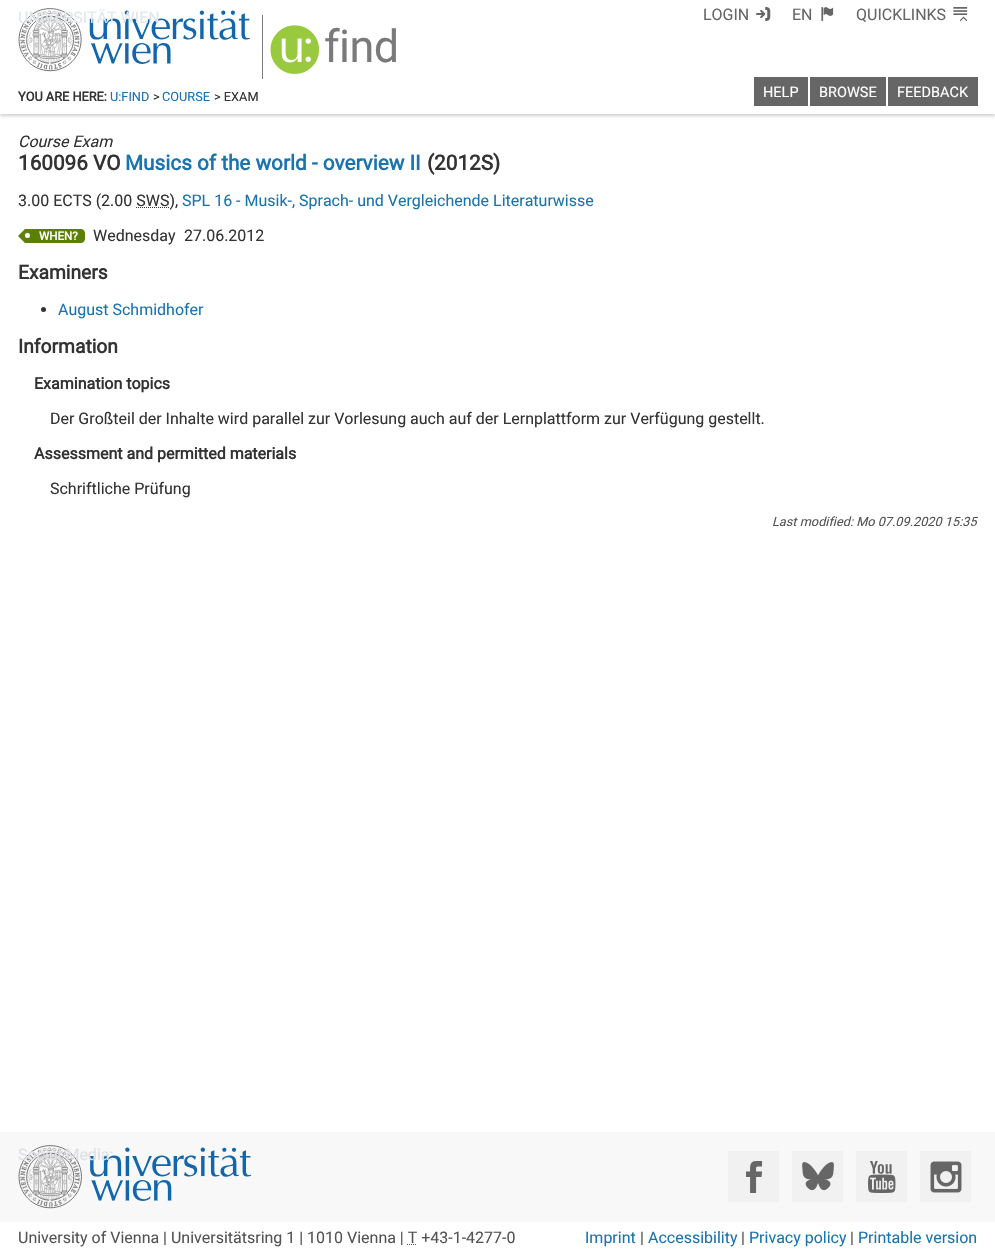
#include "include/core/SkBlurTypes.h"
#include "include/core/SkCanvas.h"
#include "include/core/SkData.h"
#include "include/core/SkFont.h"
#include "include/core/SkFontMgr.h"
#include "include/core/SkImage.h"
#include "include/core/SkMaskFilter.h"
#include "include/core/SkPaint.h"
#include "include/core/SkPathBuilder.h"
#include "include/core/SkTextBlob.h"
#include "include/effects/SkDashPathEffect.h"
#include "include/effects/SkGradientShader.h"
#include "include/utils/SkParsePath.h"

extern sk_sp<SkFontMgr> fontMgr;

static SkFont font(const char* family, int weight, float size, bool italic = false) {
    SkFontStyle style(weight, SkFontStyle::kNormal_Width,
        italic ? SkFontStyle::kItalic_Slant : SkFontStyle::kUpright_Slant);
    SkFont result(fontMgr->matchFamilyStyle(family, style), size);
    result.setSubpixel(true);
    return result;
}

static void drawLabel(SkCanvas* canvas, const char* s, float x, float y, const SkFont& font, SkColor color) {
    SkPaint ink(SkColor4f::FromColor(color));
    ink.setAntiAlias(true);
    canvas->drawString(s, x, y, font, ink);
}

static void drawTracked(SkCanvas* canvas, const char* s, float x, float y, const SkFont& font, const SkPaint& ink, float letter, float word) {
    std::vector<SkGlyphID> glyphs(font.countText(s, strlen(s), SkTextEncoding::kUTF8));
    std::vector<float> xs(glyphs.size());
    font.textToGlyphs(s, strlen(s), SkTextEncoding::kUTF8, glyphs);
    font.getXPos(glyphs, xs, x);
    float extra = 0;
    for (size_t i = 0; i < glyphs.size(); i++) {
        xs[i] += extra;
        extra += letter + word * (glyphs[i] == font.unicharToGlyph(' '));
    }
    canvas->drawTextBlob(SkTextBlob::MakeFromPosHGlyphs(glyphs, xs, y, font), 0, 0, ink);
}

static void fillRect(SkCanvas* canvas, float x, float y, float w, float h, SkColor color) {
    SkPaint ink(SkColor4f::FromColor(color));
    ink.setAntiAlias(true);
    canvas->drawRect(SkRect::MakeXYWH(x, y, w, h), ink);
}

static void drawPhoto(SkCanvas* canvas, const char* path, float x, float y, float w, float h) {
    auto image = SkImages::DeferredFromEncodedData(SkData::MakeFromFileName(path));
    canvas->drawImageRect(image, SkRect::MakeXYWH(x, y, w, h), SkSamplingOptions());
}

static SkPath parsePath(const char* data, bool evenOdd = false) {
    SkPath result = *SkParsePath::FromSVGString(data);
    if (evenOdd) result.setFillType(SkPathFillType::kEvenOdd);
    return result;
}

void draw(SkCanvas* canvas) {
    SkPaint paint;
    paint.setAntiAlias(true);
    canvas->clear(0xFFFFFFFF);
    paint.setColor(0x2E000000);
    paint.setMaskFilter(SkMaskFilter::MakeBlur(kNormal_SkBlurStyle, 1.5f));
    canvas->drawRect(SkRect::MakeXYWH(0, 2, 995, 114), paint);
    paint.setMaskFilter(nullptr);
    fillRect(canvas, 0, 0, 995, 114, 0xFFFFFFFF);
    drawPhoto(canvas, "assets/img1.png", 18, 8, 232, 64);
    SkFont font1 = font("Roboto", 400, 16);
    drawLabel(canvas, "UNIVERSITÄT WIEN", 18, 23, font1, 0xFFE2E7EC);
    fillRect(canvas, 262, 15, 1, 64, 0xFF7A7A7A);
    drawPhoto(canvas, "assets/img2.png", 270, 25, 50, 49);
    SkFont font2 = font("Roboto", 400, 45);
    paint.setColor(0xFF7A7A7A);
    drawTracked(canvas, "find", 324, 62, font2, paint, -0.5f, 0);
    drawLabel(canvas, "LOGIN", 703, 20, font1, 0xFF666666);
    drawPhoto(canvas, "assets/img3.png", 756, 7, 15, 14);
    drawLabel(canvas, "EN", 792, 20, font1, 0xFF666666);
    drawPhoto(canvas, "assets/img4.png", 821, 7, 13, 14);
    drawLabel(canvas, "QUICKLINKS", 856, 20, font1, 0xFF666666);
    drawPhoto(canvas, "assets/img5.png", 953, 7, 15, 14);
    fillRect(canvas, 754, 77, 54, 29, 0xFF666666);
    SkFont font3 = font("Roboto", 400, 14.5f);
    drawLabel(canvas, "HELP", 763, 97, font3, 0xFFFFFFFF);
    fillRect(canvas, 810, 77, 76, 29, 0xFF666666);
    drawLabel(canvas, "BROWSE", 819, 97, font3, 0xFFFFFFFF);
    fillRect(canvas, 888, 77, 90, 29, 0xFF666666);
    drawLabel(canvas, "FEEDBACK", 897, 97, font3, 0xFFFFFFFF);
    SkFont font4 = font("Roboto", 700, 12.75f);
    drawLabel(canvas, "YOU ARE HERE:", 18, 101, font4, 0xFF333333);
    SkFont font5 = font("Roboto", 400, 12.75f);
    drawLabel(canvas, "U:FIND", 110, 101, font5, 0xFF1A74B0);
    drawLabel(canvas, ">", 153, 101, font5, 0xFF333333);
    drawLabel(canvas, "COURSE", 162, 101, font5, 0xFF1A74B0);
    drawLabel(canvas, "> EXAM", 214, 101, font5, 0xFF333333);
    SkFont font6 = font("Roboto", 400, 16, true);
    drawLabel(canvas, "Course Exam", 18, 147, font6, 0xFF333333);
    SkFont font7 = font("Roboto", 700, 20.75f);
    drawLabel(canvas, "160096 VO", 18, 170, font7, 0xFF333333);
    drawLabel(canvas, "Musics of the world - overview II", 125, 170, font7, 0xFF1A74B0);
    drawLabel(canvas, "(2012S)", 427, 170, font7, 0xFF333333);
    drawLabel(canvas, "3.00 ECTS (2.00 SWS),", 18, 206, font1, 0xFF333333);
    drawLabel(canvas, "SPL 16 - Musik-, Sprach- und Vergleichende Literaturwisse", 182, 206, font1, 0xFF1A74B0);
    paint.setStroke(true);
    paint.setStrokeWidth(1);
    paint.setColor(0xFF333333);
    paint.setPathEffect(SkDashPathEffect::Make({{1, 1}}, 0));
    canvas->drawPath(parsePath("M136 207.5H169"), paint);
    paint.setPathEffect(nullptr);
    paint.setStroke(false);
    paint.setColor(0xFF5C8006);
    canvas->drawPath(parsePath("M25 229V243L18 236Z"), paint);
    canvas->drawPath(parsePath("M25 229H81C83 229 85 231 85 233V239C85 241 83 243 81 243H25Z"), paint);
    paint.setColor(0xFF688D29);
    paint.setMaskFilter(SkMaskFilter::MakeBlur(kNormal_SkBlurStyle, 1));
    canvas->drawRoundRect(SkRect::MakeXYWH(24, 232, 5, 5), 2.5f, 2.5f, paint);
    paint.setMaskFilter(nullptr);
    paint.setColor(0xFFFFFFFF);
    canvas->drawCircle(27.5f, 235.5f, 2.5f, paint);
    SkFont font8 = font("Roboto", 700, 11.5f);
    drawLabel(canvas, "WHEN?", 39, 240, font8, 0xFFFFFFFF);
    drawLabel(canvas, "Wednesday", 93, 241, font1, 0xFF333333);
    drawLabel(canvas, "27.06.2012", 184, 241, font1, 0xFF333333);
    SkFont font9 = font("Roboto", 700, 19.25f);
    drawLabel(canvas, "Examiners", 18, 279, font9, 0xFF333333);
    paint.setColor(0xFF333333);
    canvas->drawCircle(43.5f, 309.5f, 2.5f, paint);
    drawLabel(canvas, "August Schmidhofer", 58, 315, font1, 0xFF1A74B0);
    drawLabel(canvas, "Information", 18, 353, font9, 0xFF333333);
    SkFont font10 = font("Roboto", 700, 16);
    drawLabel(canvas, "Examination topics", 34, 389, font10, 0xFF333333);
    drawLabel(canvas, "Der Großteil der Inhalte wird parallel zur Vorlesung auch auf der Lernplattform zur Verfügung gestellt.", 50, 424, font1, 0xFF333333);
    drawLabel(canvas, "Assessment and permitted materials", 34, 459, font10, 0xFF333333);
    drawLabel(canvas, "Schriftliche Prüfung", 50, 494, font1, 0xFF333333);
    SkFont font11 = font("Roboto", 400, 12.75f, true);
    drawLabel(canvas, "Last modified: Mo 07.09.2020 15:35", 772, 526, font11, 0xFF545454);
    fillRect(canvas, 0, 1132, 995, 90, 0xFFF8F8F8);
    drawPhoto(canvas, "assets/img6.png", 18, 1145, 234, 64);
    drawLabel(canvas, "Social Media:", 18, 1160, font1, 0xFFDEE0E3);
    fillRect(canvas, 728, 1151, 51, 51, 0xFFF1F1F1);
    drawPhoto(canvas, "assets/img7.png", 746, 1161, 17, 32);
    fillRect(canvas, 792, 1151, 51, 51, 0xFFF1F1F1);
    drawPhoto(canvas, "assets/img8.png", 802, 1162, 32, 29);
    fillRect(canvas, 856, 1151, 51, 51, 0xFFF1F1F1);
    drawPhoto(canvas, "assets/img9.png", 868, 1161, 28, 32);
    fillRect(canvas, 920, 1151, 51, 51, 0xFFF1F1F1);
    drawPhoto(canvas, "assets/img10.png", 930, 1161, 32, 32);
    drawLabel(canvas, "University of Vienna | Universitätsring 1 | 1010 Vienna | T +43-1-4277-0", 18, 1243, font1, 0xFF545454);
    paint.setStroke(true);
    paint.setColor(0xFF545454);
    paint.setPathEffect(SkDashPathEffect::Make({{1, 1}}, 0));
    canvas->drawPath(parsePath("M407 1244.5H417"), paint);
    paint.setPathEffect(nullptr);
    drawLabel(canvas, "Imprint", 585, 1243, font1, 0xFF1A74B0);
    drawLabel(canvas, "|", 640, 1243, font1, 0xFF545454);
    drawLabel(canvas, "Accessibility", 648, 1243, font1, 0xFF1A74B0);
    drawLabel(canvas, "|", 741, 1243, font1, 0xFF545454);
    drawLabel(canvas, "Privacy policy", 749, 1243, font1, 0xFF1A74B0);
    drawLabel(canvas, "|", 850, 1243, font1, 0xFF545454);
    drawLabel(canvas, "Printable version", 858, 1243, font1, 0xFF1A74B0);
}
